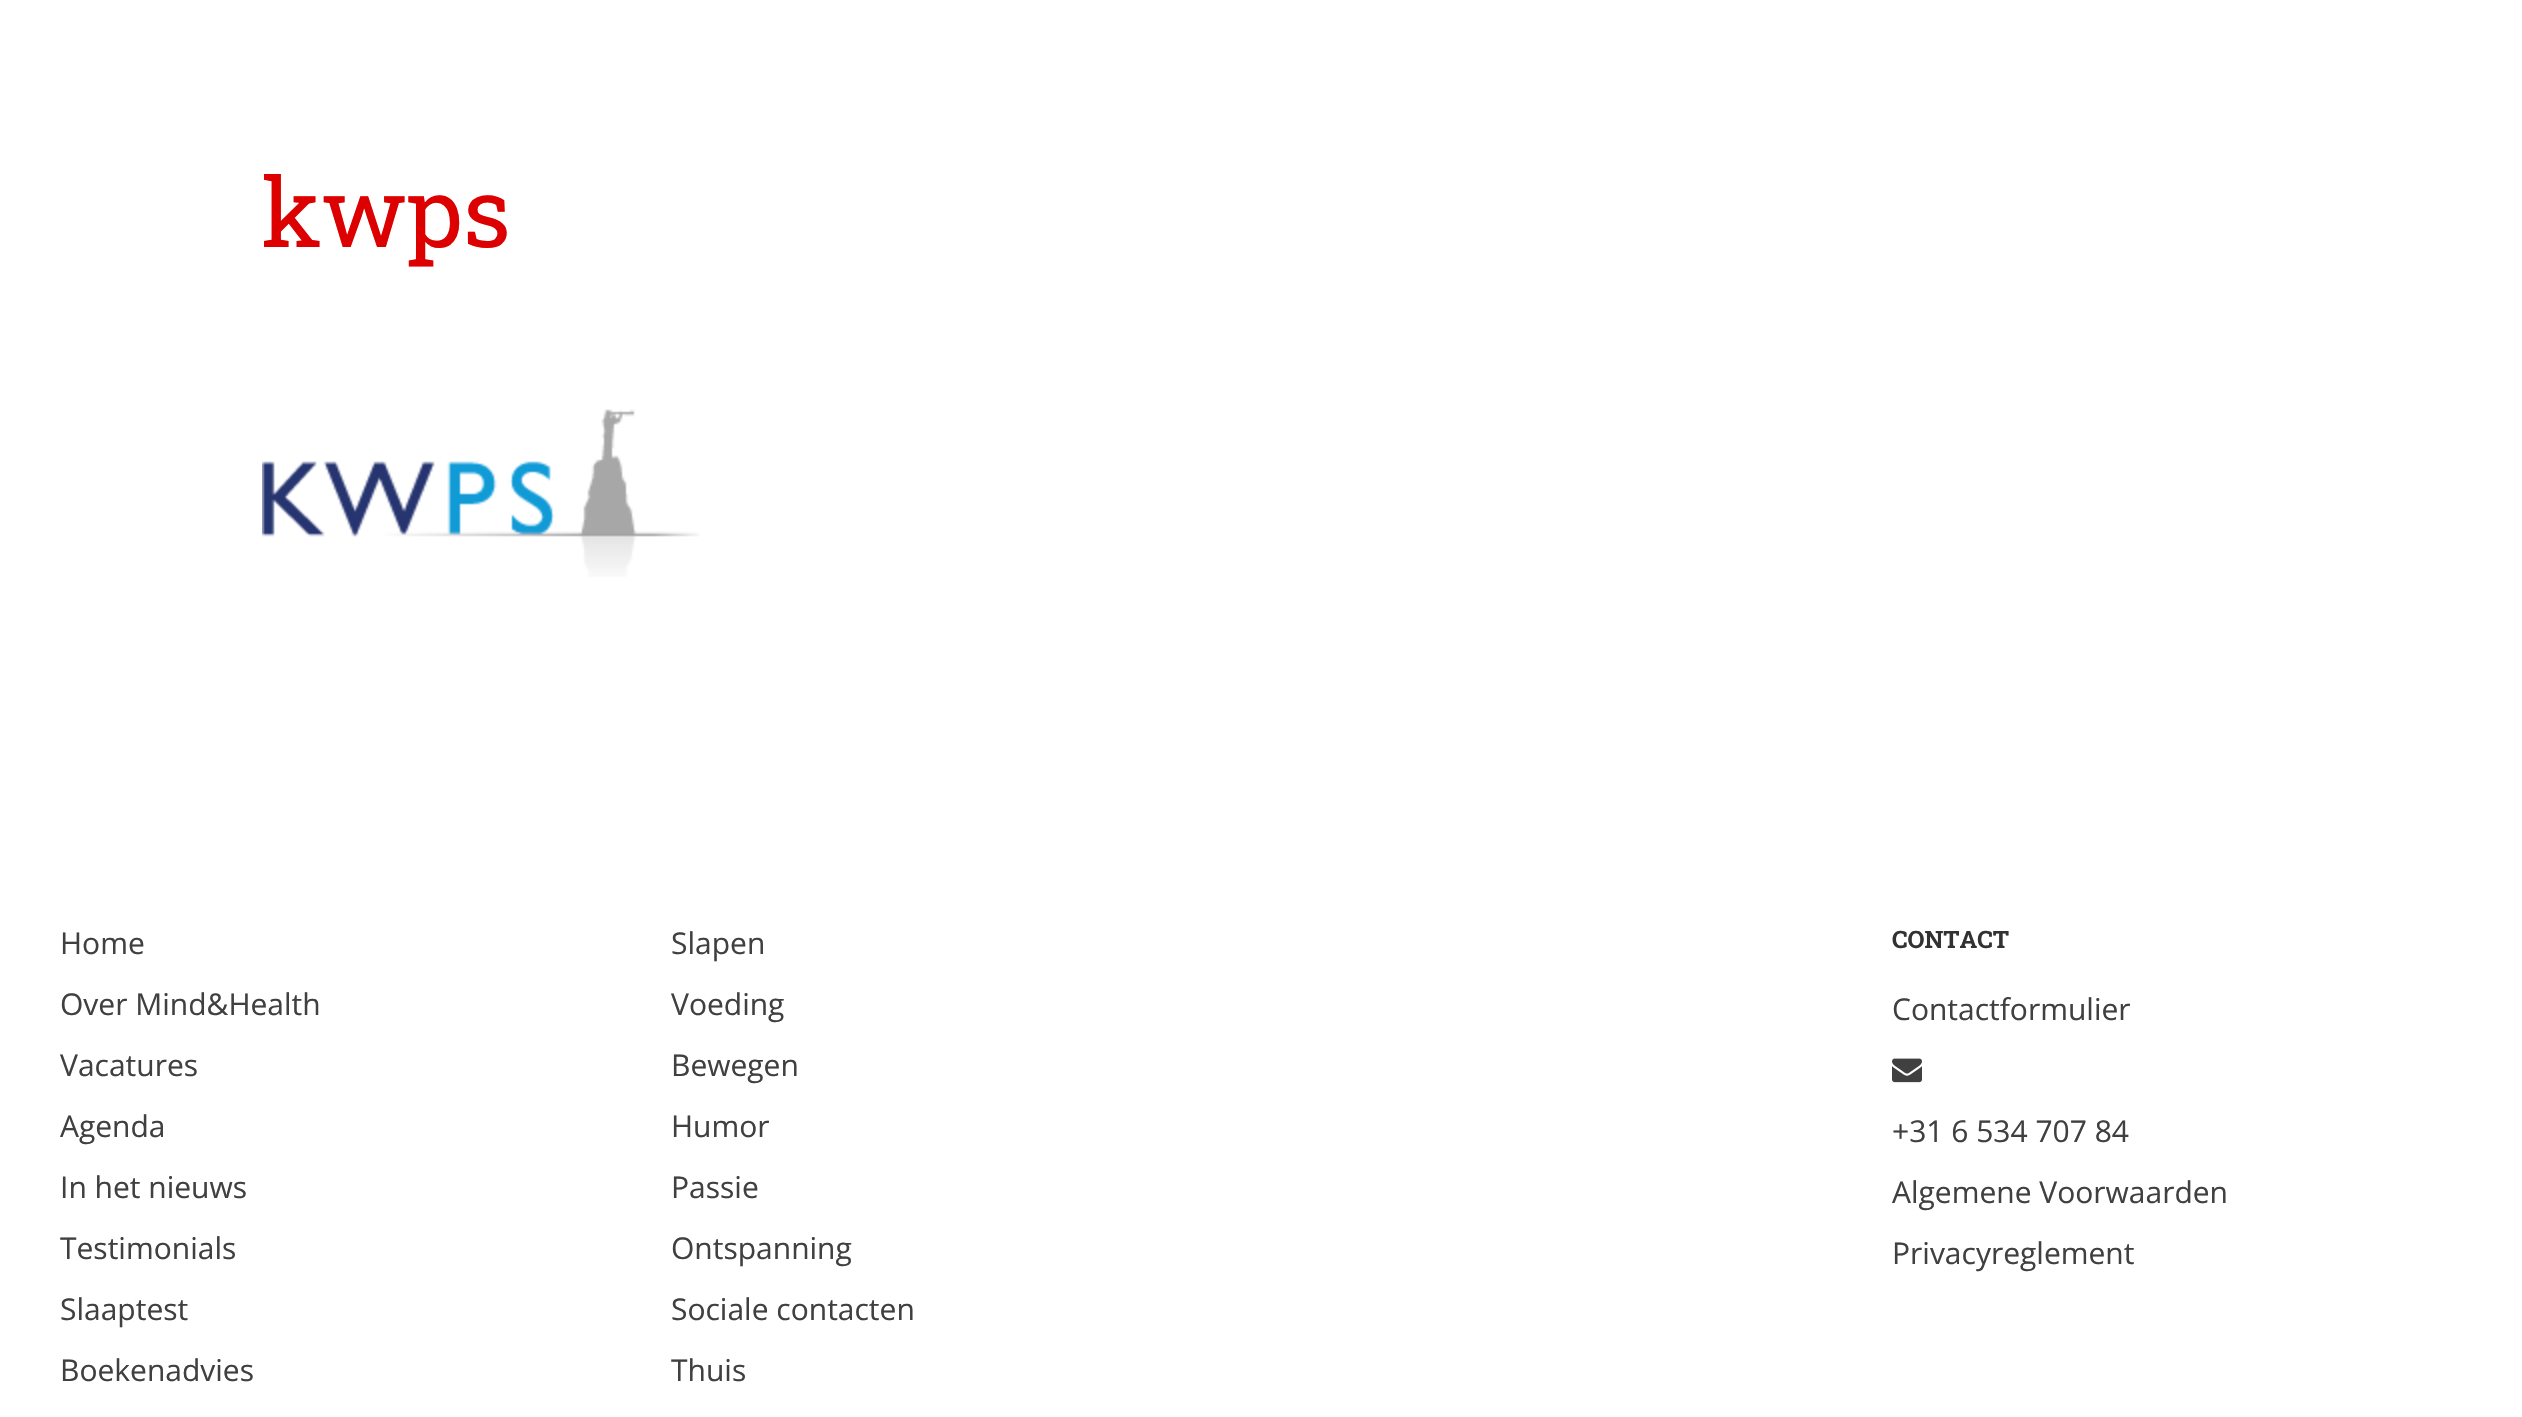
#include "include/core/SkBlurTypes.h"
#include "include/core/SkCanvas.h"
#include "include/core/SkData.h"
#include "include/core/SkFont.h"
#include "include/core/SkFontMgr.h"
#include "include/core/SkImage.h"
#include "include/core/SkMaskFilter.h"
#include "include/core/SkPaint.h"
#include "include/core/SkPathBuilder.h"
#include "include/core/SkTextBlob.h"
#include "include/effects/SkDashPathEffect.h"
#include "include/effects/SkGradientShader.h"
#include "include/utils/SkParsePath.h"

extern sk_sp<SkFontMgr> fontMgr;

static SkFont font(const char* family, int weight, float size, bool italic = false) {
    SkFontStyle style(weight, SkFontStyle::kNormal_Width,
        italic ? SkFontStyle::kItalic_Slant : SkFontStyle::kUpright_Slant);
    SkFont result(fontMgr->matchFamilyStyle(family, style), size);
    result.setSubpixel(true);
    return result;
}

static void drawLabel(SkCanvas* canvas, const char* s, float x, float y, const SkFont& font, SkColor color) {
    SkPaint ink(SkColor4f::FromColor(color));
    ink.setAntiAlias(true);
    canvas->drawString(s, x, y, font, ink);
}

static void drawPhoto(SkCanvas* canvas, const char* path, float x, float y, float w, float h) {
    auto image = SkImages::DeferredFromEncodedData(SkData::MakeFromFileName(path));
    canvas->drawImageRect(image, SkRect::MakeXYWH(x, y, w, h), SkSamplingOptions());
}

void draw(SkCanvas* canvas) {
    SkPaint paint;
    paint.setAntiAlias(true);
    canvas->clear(0xFFFFFFFF);
    SkFont font1 = font("Roboto Slab", 400, 96);
    drawLabel(canvas, "kwps", 261, 247, font1, 0xFFDD0000);
    drawPhoto(canvas, "assets/img1.png", 262, 409, 438, 168);
    SkFont font2 = font("Open Sans", 400, 30);
    drawLabel(canvas, "Home", 60, 954, font2, 0xFF404040);
    drawLabel(canvas, "Over Mind&Health", 60, 1015, font2, 0xFF404040);
    drawLabel(canvas, "Vacatures", 60, 1076, font2, 0xFF404040);
    drawLabel(canvas, "Agenda", 60, 1137, font2, 0xFF404040);
    drawLabel(canvas, "In het nieuws", 60, 1198, font2, 0xFF404040);
    drawLabel(canvas, "Testimonials", 60, 1259, font2, 0xFF404040);
    drawLabel(canvas, "Slaaptest", 60, 1320, font2, 0xFF404040);
    drawLabel(canvas, "Boekenadvies", 60, 1381, font2, 0xFF404040);
    drawLabel(canvas, "Slapen", 671, 954, font2, 0xFF404040);
    drawLabel(canvas, "Voeding", 671, 1015, font2, 0xFF404040);
    drawLabel(canvas, "Bewegen", 671, 1076, font2, 0xFF404040);
    drawLabel(canvas, "Humor", 671, 1137, font2, 0xFF404040);
    drawLabel(canvas, "Passie", 671, 1198, font2, 0xFF404040);
    drawLabel(canvas, "Ontspanning", 671, 1259, font2, 0xFF404040);
    drawLabel(canvas, "Sociale contacten", 671, 1320, font2, 0xFF404040);
    drawLabel(canvas, "Thuis", 671, 1381, font2, 0xFF404040);
    SkFont font3 = font("Roboto Slab", 700, 24);
    drawLabel(canvas, "CONTACT", 1892, 948, font3, 0xFF323232);
    drawLabel(canvas, "Contactformulier", 1892, 1020, font2, 0xFF404040);
    drawPhoto(canvas, "assets/img2.png", 1892, 1058, 30, 25);
    drawLabel(canvas, "+31 6 534 707 84", 1892, 1142, font2, 0xFF404040);
    drawLabel(canvas, "Algemene Voorwaarden", 1892, 1203, font2, 0xFF404040);
    drawLabel(canvas, "Privacyreglement", 1892, 1264, font2, 0xFF404040);
}
